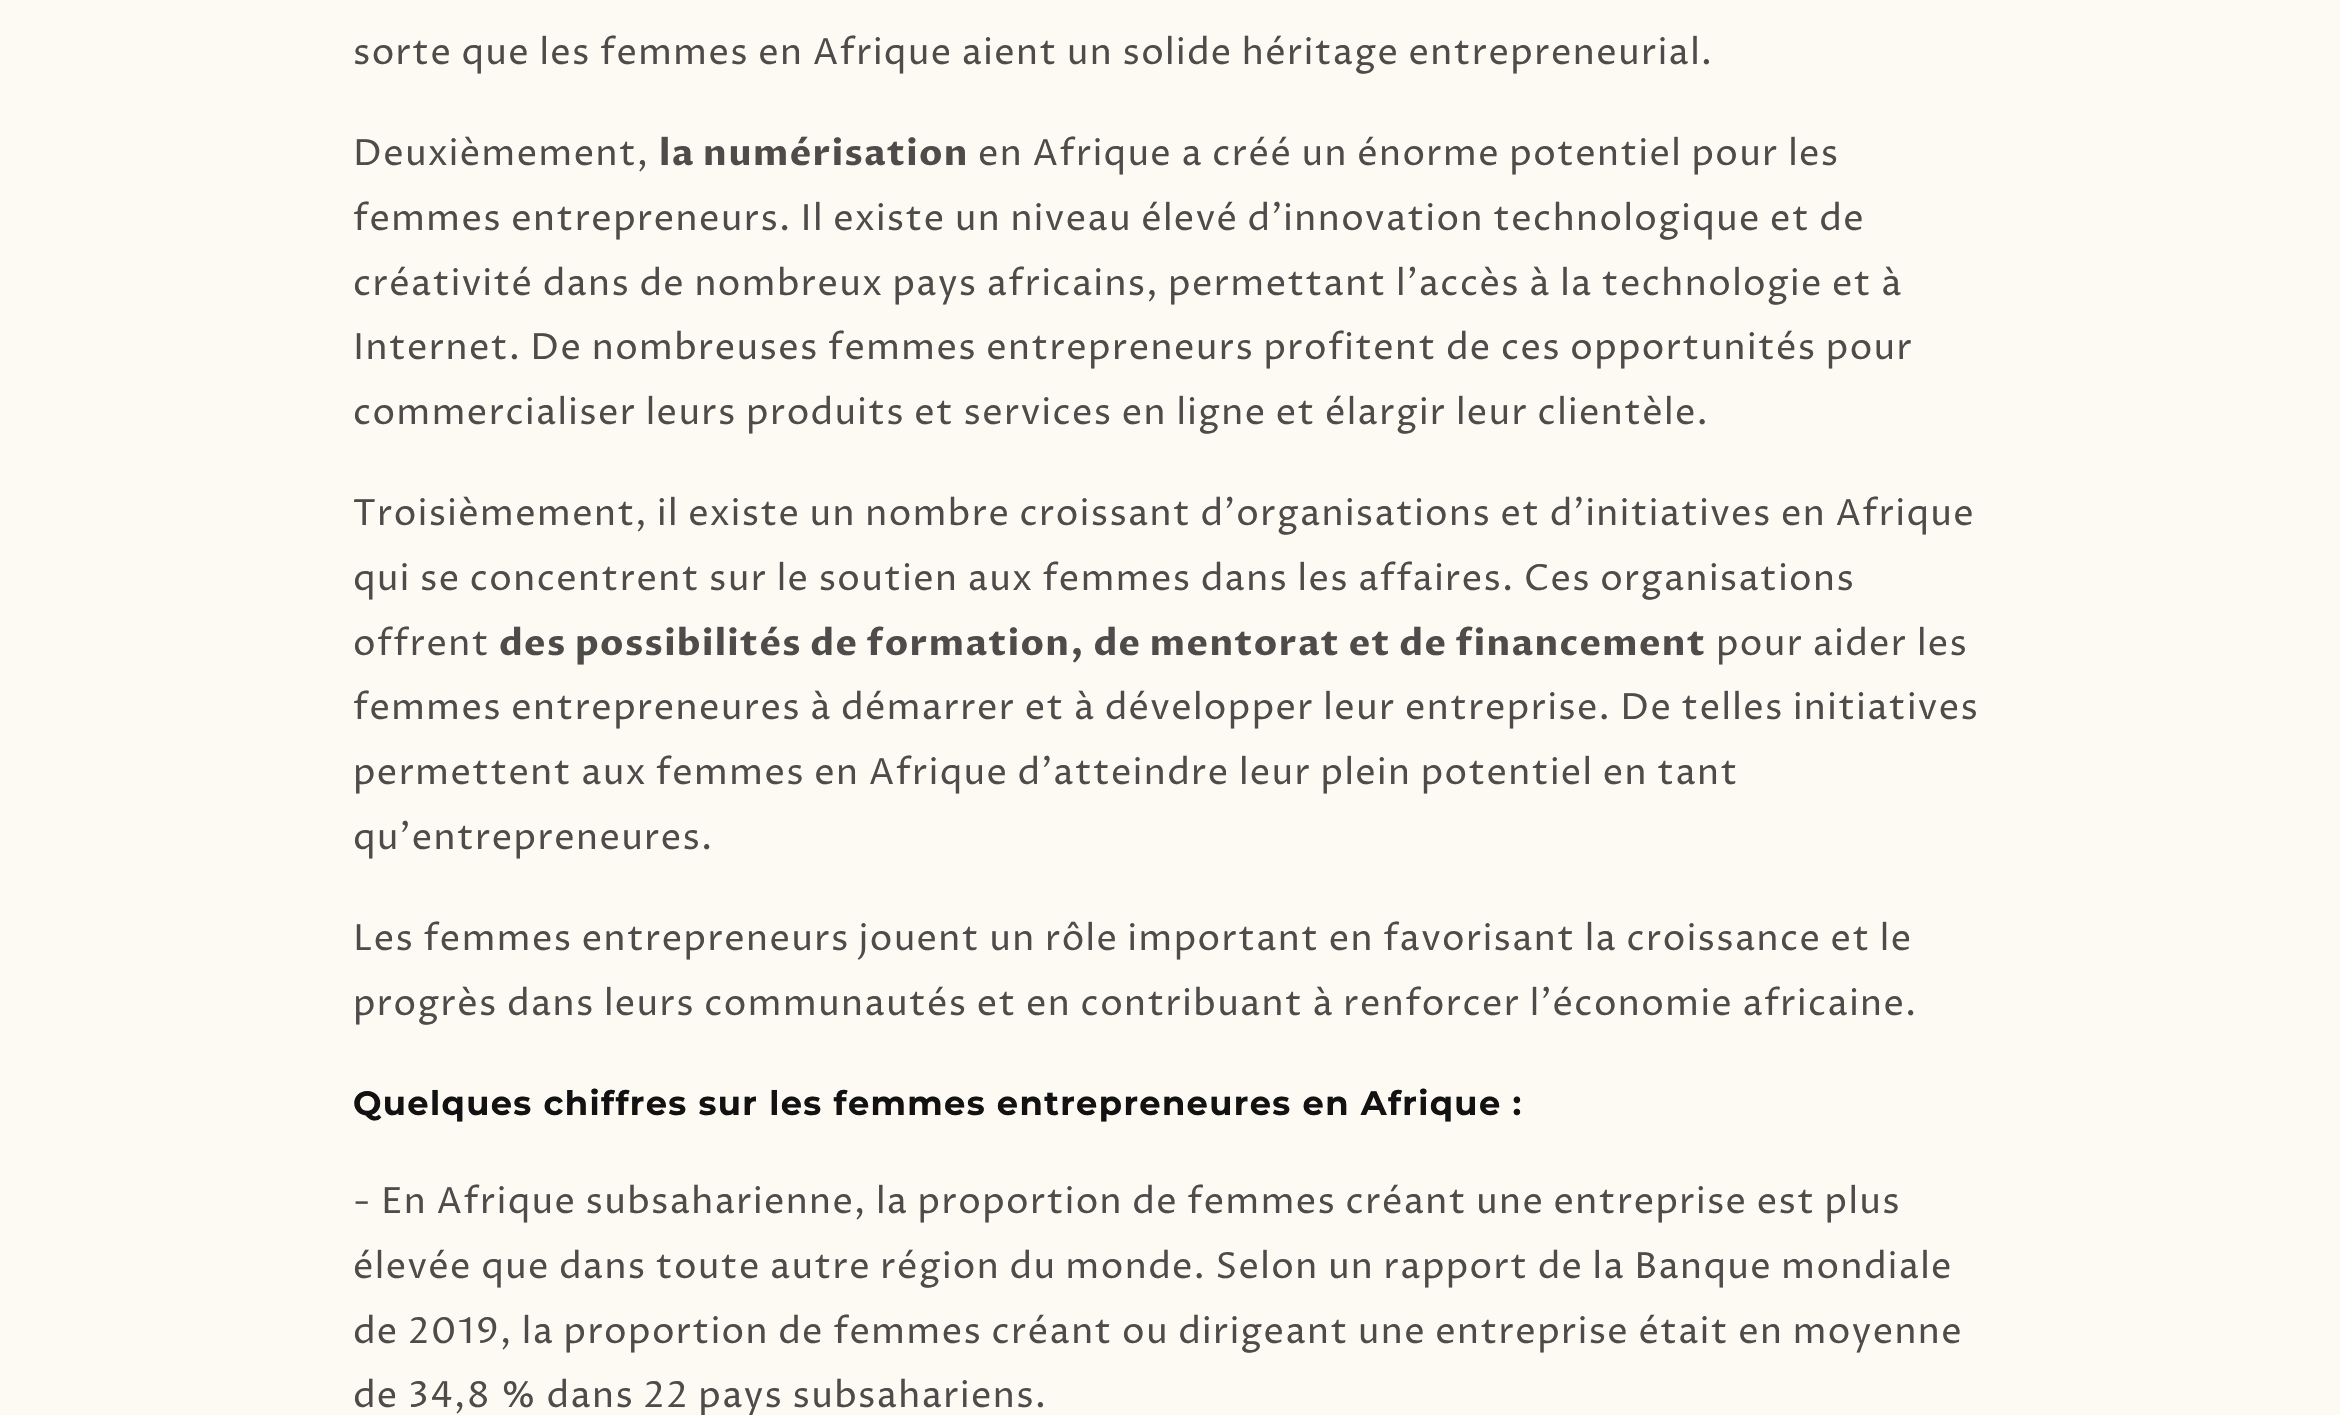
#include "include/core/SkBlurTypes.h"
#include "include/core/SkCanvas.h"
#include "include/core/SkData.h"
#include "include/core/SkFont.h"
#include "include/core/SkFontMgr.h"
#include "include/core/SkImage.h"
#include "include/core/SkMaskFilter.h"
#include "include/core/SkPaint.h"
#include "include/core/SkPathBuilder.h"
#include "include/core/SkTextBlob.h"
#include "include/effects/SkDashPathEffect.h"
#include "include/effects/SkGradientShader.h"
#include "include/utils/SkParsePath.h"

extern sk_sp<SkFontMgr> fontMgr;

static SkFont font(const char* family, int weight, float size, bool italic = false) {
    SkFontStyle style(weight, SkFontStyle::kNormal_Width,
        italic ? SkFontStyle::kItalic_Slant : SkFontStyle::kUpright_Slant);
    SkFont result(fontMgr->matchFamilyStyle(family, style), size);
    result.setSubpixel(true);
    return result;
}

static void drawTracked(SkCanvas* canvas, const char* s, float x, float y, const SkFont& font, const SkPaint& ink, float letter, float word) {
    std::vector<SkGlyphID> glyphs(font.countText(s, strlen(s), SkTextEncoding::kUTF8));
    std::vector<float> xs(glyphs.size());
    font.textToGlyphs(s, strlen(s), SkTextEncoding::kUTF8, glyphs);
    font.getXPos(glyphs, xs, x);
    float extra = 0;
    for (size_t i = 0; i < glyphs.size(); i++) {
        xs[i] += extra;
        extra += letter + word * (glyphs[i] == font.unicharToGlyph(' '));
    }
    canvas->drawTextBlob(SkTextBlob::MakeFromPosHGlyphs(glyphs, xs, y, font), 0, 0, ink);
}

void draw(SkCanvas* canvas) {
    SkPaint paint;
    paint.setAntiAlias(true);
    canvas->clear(0xFFFCFAF2);
    SkFont font1 = font("Proza Libre", 400, 36);
    paint.setColor(0xFF4D4C4A);
    drawTracked(canvas, "sorte que les femmes en Afrique aient un solide héritage entrepreneurial.", 353, 64, font1, paint, 1.35f, 0);
    drawTracked(canvas, "Deuxièmement,", 353, 165, font1, paint, 1.35f, 0);
    SkFont font2 = font("Proza Libre", 700, 36);
    drawTracked(canvas, "la numérisation", 659, 165, font2, paint, 1.35f, 0);
    drawTracked(canvas, "en Afrique a créé un énorme potentiel pour les", 978, 165, font1, paint, 1.35f, 0);
    drawTracked(canvas, "femmes entrepreneurs. Il existe un niveau élevé d'innovation technologique et de", 353, 230, font1, paint, 1.35f, 0);
    drawTracked(canvas, "créativité dans de nombreux pays africains, permettant l'accès à la technologie et à", 353, 295, font1, paint, 1.35f, 0);
    drawTracked(canvas, "Internet. De nombreuses femmes entrepreneurs profitent de ces opportunités pour", 353, 359, font1, paint, 1.35f, 0);
    drawTracked(canvas, "commercialiser leurs produits et services en ligne et élargir leur clientèle.", 353, 424, font1, paint, 1.35f, 0);
    drawTracked(canvas, "Troisièmement, il existe un nombre croissant d'organisations et d'initiatives en Afrique", 353, 525, font1, paint, 1.35f, 0);
    drawTracked(canvas, "qui se concentrent sur le soutien aux femmes dans les affaires. Ces organisations", 353, 590, font1, paint, 1.35f, 0);
    drawTracked(canvas, "offrent", 353, 655, font1, paint, 1.35f, 0);
    drawTracked(canvas, "des possibilités de formation, de mentorat et de financement", 499, 655, font2, paint, 1.35f, 0);
    drawTracked(canvas, "pour aider les", 1716, 655, font1, paint, 1.35f, 0);
    drawTracked(canvas, "femmes entrepreneures à démarrer et à développer leur entreprise. De telles initiatives", 353, 719, font1, paint, 1.35f, 0);
    drawTracked(canvas, "permettent aux femmes en Afrique d'atteindre leur plein potentiel en tant", 353, 784, font1, paint, 1.35f, 0);
    drawTracked(canvas, "qu'entrepreneures.", 353, 849, font1, paint, 1.35f, 0);
    drawTracked(canvas, "Les femmes entrepreneurs jouent un rôle important en favorisant la croissance et le", 353, 950, font1, paint, 1.35f, 0);
    drawTracked(canvas, "progrès dans leurs communautés et en contribuant à renforcer l'économie africaine.", 353, 1015, font1, paint, 1.35f, 0);
    SkFont font3 = font("Montserrat", 700, 33.75f);
    paint.setColor(0xFF121212);
    drawTracked(canvas, "Quelques chiffres sur les femmes entrepreneures en Afrique :", 353, 1115, font3, paint, 1.35f, 0);
    paint.setColor(0xFF4D4C4A);
    drawTracked(canvas, "- En Afrique subsaharienne, la proportion de femmes créant une entreprise est plus", 353, 1213, font1, paint, 1.35f, 0);
    drawTracked(canvas, "élevée que dans toute autre région du monde. Selon un rapport de la Banque mondiale", 353, 1278, font1, paint, 1.35f, 0);
    drawTracked(canvas, "de 2019, la proportion de femmes créant ou dirigeant une entreprise était en moyenne", 353, 1343, font1, paint, 1.35f, 0);
    drawTracked(canvas, "de 34,8 % dans 22 pays subsahariens.", 353, 1407, font1, paint, 1.35f, 0);
}
